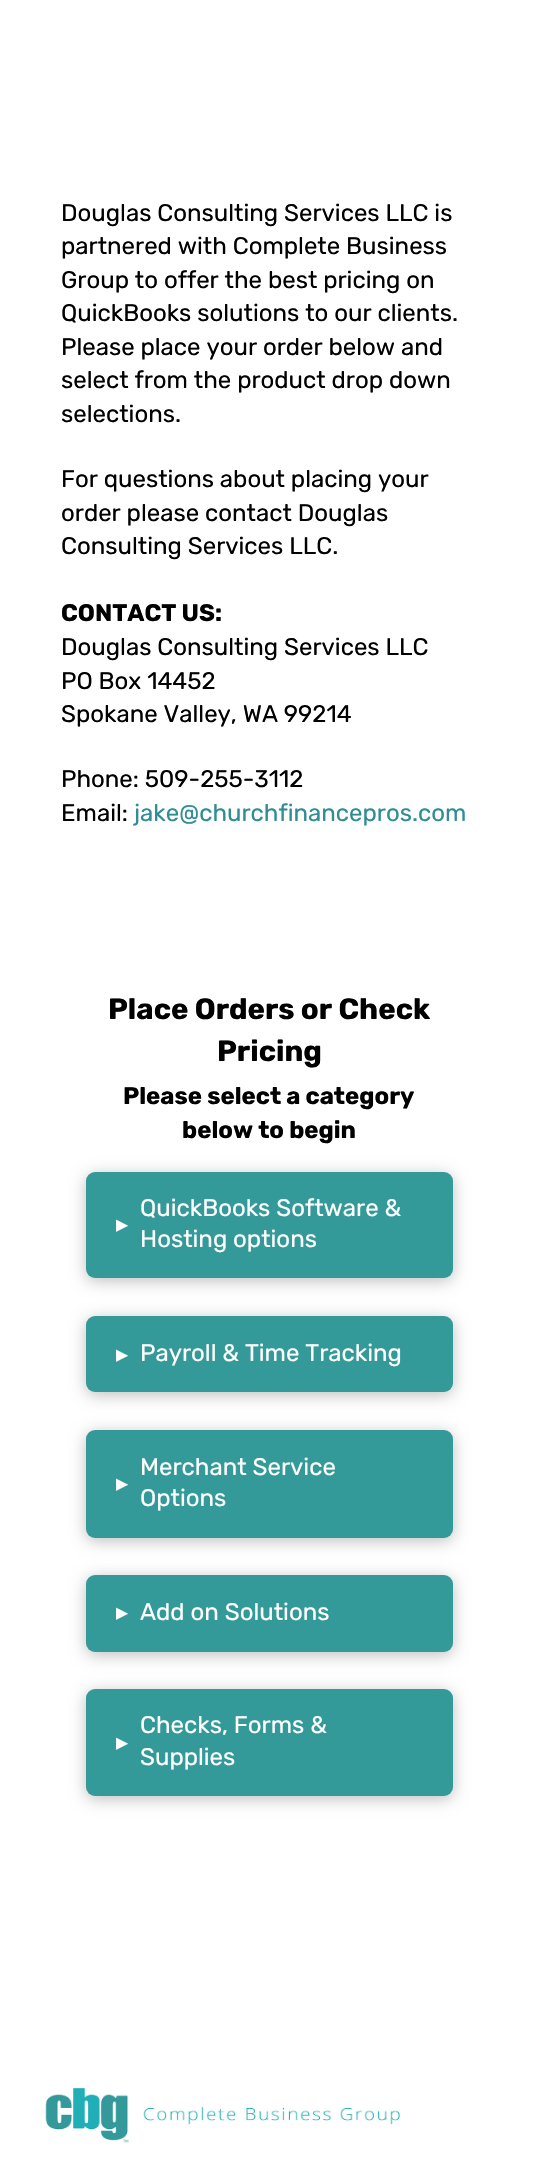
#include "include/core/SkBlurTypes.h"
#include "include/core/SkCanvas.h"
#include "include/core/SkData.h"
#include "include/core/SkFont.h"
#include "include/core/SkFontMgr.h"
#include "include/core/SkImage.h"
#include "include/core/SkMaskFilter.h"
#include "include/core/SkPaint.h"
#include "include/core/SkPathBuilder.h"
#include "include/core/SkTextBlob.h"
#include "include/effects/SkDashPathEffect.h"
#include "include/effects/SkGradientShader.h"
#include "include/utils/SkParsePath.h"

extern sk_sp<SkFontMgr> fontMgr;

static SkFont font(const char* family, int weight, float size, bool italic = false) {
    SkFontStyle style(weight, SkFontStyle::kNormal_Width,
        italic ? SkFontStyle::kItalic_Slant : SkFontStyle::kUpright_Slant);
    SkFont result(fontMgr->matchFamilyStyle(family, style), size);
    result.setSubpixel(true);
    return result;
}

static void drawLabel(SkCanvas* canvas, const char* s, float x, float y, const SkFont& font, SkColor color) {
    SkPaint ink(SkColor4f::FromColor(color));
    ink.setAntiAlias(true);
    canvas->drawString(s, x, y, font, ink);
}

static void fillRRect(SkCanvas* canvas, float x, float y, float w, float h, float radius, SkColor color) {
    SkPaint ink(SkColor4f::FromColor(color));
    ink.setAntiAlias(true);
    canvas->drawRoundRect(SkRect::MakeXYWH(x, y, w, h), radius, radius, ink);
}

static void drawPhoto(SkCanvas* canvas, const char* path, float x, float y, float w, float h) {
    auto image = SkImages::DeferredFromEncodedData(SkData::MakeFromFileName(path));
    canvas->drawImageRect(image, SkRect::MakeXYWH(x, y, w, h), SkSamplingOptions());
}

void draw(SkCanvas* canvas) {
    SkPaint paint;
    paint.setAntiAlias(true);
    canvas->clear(0xFFFFFFFF);
    SkFont font1 = font("Rubik", 400, 24);
    drawLabel(canvas, "Douglas Consulting Services LLC is", 61, 221, font1, 0xFF000000);
    drawLabel(canvas, "partnered with Complete Business", 61, 254, font1, 0xFF000000);
    drawLabel(canvas, "Group to offer the best pricing on", 61, 288, font1, 0xFF000000);
    drawLabel(canvas, "QuickBooks solutions to our clients.", 61, 321, font1, 0xFF000000);
    drawLabel(canvas, "Please place your order below and", 61, 355, font1, 0xFF000000);
    drawLabel(canvas, "select from the product drop down", 61, 388, font1, 0xFF000000);
    drawLabel(canvas, "selections.", 61, 422, font1, 0xFF000000);
    drawLabel(canvas, "For questions about placing your", 61, 487, font1, 0xFF000000);
    drawLabel(canvas, "order please contact Douglas", 61, 521, font1, 0xFF000000);
    drawLabel(canvas, "Consulting Services LLC.", 61, 554, font1, 0xFF000000);
    SkFont font2 = font("Rubik", 700, 24);
    drawLabel(canvas, "CONTACT US:", 61, 621, font2, 0xFF000000);
    drawLabel(canvas, "Douglas Consulting Services LLC", 61, 655, font1, 0xFF000000);
    drawLabel(canvas, "PO Box 14452", 61, 689, font1, 0xFF000000);
    drawLabel(canvas, "Spokane Valley, WA 99214", 61, 722, font1, 0xFF000000);
    drawLabel(canvas, "Phone: 509-255-3112", 61, 787, font1, 0xFF000000);
    drawLabel(canvas, "Email:", 61, 821, font1, 0xFF000000);
    drawLabel(canvas, "jake@churchfinancepros.com", 134, 821, font1, 0xFF2F8D93);
    SkFont font3 = font("Rubik", 700, 29.4f);
    drawLabel(canvas, "Place Orders or Check", 108, 1019, font3, 0xFF000000);
    drawLabel(canvas, "Pricing", 217, 1061, font3, 0xFF000000);
    drawLabel(canvas, "Please select a category", 123, 1104, font2, 0xFF000000);
    drawLabel(canvas, "below to begin", 182, 1138, font2, 0xFF000000);
    paint.setColor(0x40000000);
    paint.setMaskFilter(SkMaskFilter::MakeBlur(kNormal_SkBlurStyle, 8));
    canvas->drawRoundRect(SkRect::MakeXYWH(86, 1175, 367, 106), 9, 9, paint);
    paint.setMaskFilter(nullptr);
    fillRRect(canvas, 86, 1172, 367, 106, 9, 0xFF339999);
    SkFont font4 = font("DejaVu Sans", 400, 24);
    drawLabel(canvas, "▸", 116, 1232, font4, 0xFFFFFFFF);
    drawLabel(canvas, "QuickBooks Software &", 140, 1216, font1, 0xFFFFFFFF);
    drawLabel(canvas, "Hosting options", 140, 1247, font1, 0xFFFFFFFF);
    paint.setMaskFilter(SkMaskFilter::MakeBlur(kNormal_SkBlurStyle, 8));
    canvas->drawRoundRect(SkRect::MakeXYWH(86, 1319, 367, 76), 9, 9, paint);
    paint.setMaskFilter(nullptr);
    fillRRect(canvas, 86, 1316, 367, 76, 9, 0xFF339999);
    drawLabel(canvas, "▸", 116, 1362, font4, 0xFFFFFFFF);
    drawLabel(canvas, "Payroll & Time Tracking", 140, 1361, font1, 0xFFFFFFFF);
    paint.setMaskFilter(SkMaskFilter::MakeBlur(kNormal_SkBlurStyle, 8));
    canvas->drawRoundRect(SkRect::MakeXYWH(86, 1433, 367, 108), 9, 9, paint);
    paint.setMaskFilter(nullptr);
    fillRRect(canvas, 86, 1430, 367, 108, 9, 0xFF339999);
    drawLabel(canvas, "▸", 116, 1491, font4, 0xFFFFFFFF);
    drawLabel(canvas, "Merchant Service", 140, 1475, font1, 0xFFFFFFFF);
    drawLabel(canvas, "Options", 140, 1506, font1, 0xFFFFFFFF);
    paint.setMaskFilter(SkMaskFilter::MakeBlur(kNormal_SkBlurStyle, 8));
    canvas->drawRoundRect(SkRect::MakeXYWH(86, 1578, 367, 77), 9, 9, paint);
    paint.setMaskFilter(nullptr);
    fillRRect(canvas, 86, 1575, 367, 77, 9, 0xFF339999);
    drawLabel(canvas, "▸", 116, 1620, font4, 0xFFFFFFFF);
    drawLabel(canvas, "Add on Solutions", 140, 1620, font1, 0xFFFFFFFF);
    paint.setMaskFilter(SkMaskFilter::MakeBlur(kNormal_SkBlurStyle, 8));
    canvas->drawRoundRect(SkRect::MakeXYWH(86, 1692, 367, 107), 9, 9, paint);
    paint.setMaskFilter(nullptr);
    fillRRect(canvas, 86, 1689, 367, 107, 9, 0xFF339999);
    drawLabel(canvas, "▸", 116, 1750, font4, 0xFFFFFFFF);
    drawLabel(canvas, "Checks, Forms &", 140, 1733, font1, 0xFFFFFFFF);
    drawLabel(canvas, "Supplies", 140, 1765, font1, 0xFFFFFFFF);
    drawPhoto(canvas, "assets/img1.png", 45, 2088, 355, 55);
}
